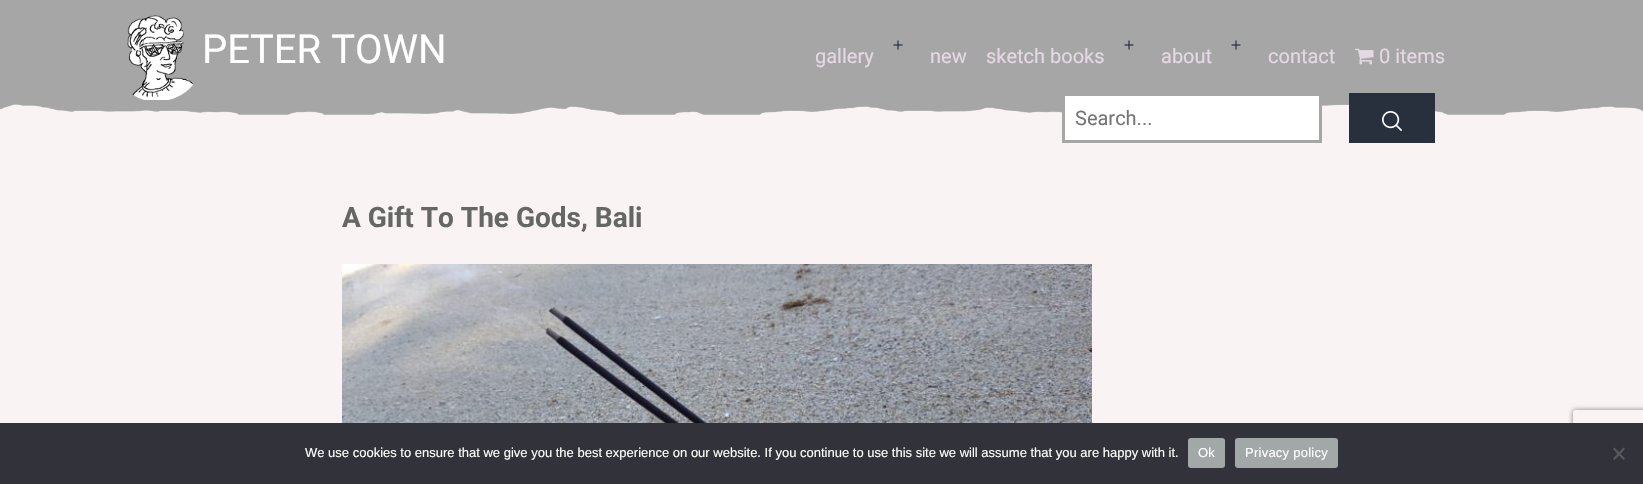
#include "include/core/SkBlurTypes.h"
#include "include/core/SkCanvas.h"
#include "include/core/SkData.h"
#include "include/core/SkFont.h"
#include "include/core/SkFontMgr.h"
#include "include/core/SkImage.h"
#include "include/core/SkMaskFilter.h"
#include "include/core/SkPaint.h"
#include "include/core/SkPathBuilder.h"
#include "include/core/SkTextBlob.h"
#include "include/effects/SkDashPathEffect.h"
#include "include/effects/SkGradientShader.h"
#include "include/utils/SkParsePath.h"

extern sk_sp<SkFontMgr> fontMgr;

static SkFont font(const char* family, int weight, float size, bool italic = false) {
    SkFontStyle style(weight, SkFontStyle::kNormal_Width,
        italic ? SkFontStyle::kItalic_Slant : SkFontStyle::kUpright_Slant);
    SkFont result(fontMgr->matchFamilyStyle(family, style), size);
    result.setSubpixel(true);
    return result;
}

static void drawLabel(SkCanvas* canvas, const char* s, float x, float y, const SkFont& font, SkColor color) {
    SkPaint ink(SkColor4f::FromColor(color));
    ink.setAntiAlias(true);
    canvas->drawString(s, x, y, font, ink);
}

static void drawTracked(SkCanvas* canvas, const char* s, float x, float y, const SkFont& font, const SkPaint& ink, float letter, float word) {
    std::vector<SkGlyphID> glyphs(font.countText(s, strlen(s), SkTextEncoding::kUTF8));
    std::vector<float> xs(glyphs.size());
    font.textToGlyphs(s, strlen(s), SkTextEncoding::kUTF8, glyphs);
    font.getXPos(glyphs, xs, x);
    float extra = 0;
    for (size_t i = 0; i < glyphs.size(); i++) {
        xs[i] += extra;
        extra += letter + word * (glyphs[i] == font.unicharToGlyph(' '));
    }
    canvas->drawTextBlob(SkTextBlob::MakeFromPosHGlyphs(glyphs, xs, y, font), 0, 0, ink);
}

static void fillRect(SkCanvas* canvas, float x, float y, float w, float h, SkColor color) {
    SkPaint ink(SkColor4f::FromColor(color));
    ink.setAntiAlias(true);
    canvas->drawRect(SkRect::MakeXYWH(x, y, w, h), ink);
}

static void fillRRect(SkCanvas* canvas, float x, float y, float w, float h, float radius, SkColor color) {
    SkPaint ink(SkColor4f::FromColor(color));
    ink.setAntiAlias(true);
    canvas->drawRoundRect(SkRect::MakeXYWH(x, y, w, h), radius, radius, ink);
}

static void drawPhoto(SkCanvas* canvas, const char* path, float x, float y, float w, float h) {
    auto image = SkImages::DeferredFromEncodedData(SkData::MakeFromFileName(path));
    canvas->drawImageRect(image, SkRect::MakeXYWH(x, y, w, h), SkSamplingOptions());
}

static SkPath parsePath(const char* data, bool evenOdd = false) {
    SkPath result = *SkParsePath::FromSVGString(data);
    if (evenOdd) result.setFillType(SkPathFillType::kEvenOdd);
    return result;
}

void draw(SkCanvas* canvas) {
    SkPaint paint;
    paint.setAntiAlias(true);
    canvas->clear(0xFFF9F3F3);
    drawPhoto(canvas, "assets/img1.png", 0, 0, 1643, 115);
    drawPhoto(canvas, "assets/img2.png", 127, 15, 66, 85);
    SkFont font1 = font("Roboto", 400, 40);
    drawLabel(canvas, "PETER TOWN", 202, 63, font1, 0xFFFFFFFF);
    drawPhoto(canvas, "assets/img3.png", 893, 40, 10, 10);
    SkFont font2 = font("Roboto", 400, 20);
    drawLabel(canvas, "gallery", 815, 63, font2, 0xFFE4D8E4);
    drawLabel(canvas, "new", 930, 63, font2, 0xFFE4D8E4);
    drawPhoto(canvas, "assets/img3.png", 1124, 40, 10, 10);
    drawLabel(canvas, "sketch books", 986, 63, font2, 0xFFE4D8E4);
    drawPhoto(canvas, "assets/img3.png", 1231, 40, 10, 10);
    drawLabel(canvas, "about", 1161, 63, font2, 0xFFE4D8E4);
    drawLabel(canvas, "contact", 1268, 63, font2, 0xFFE4D8E4);
    drawPhoto(canvas, "assets/img4.png", 1355, 48, 19, 17);
    drawLabel(canvas, "0 items", 1379, 63, font2, 0xFFE4D8E4);
    paint.setColor(0xFFFFFFFF);
    canvas->drawRect(SkRect::MakeXYWH(1063.5f, 94.5f, 257, 47), paint);
    paint.setStroke(true);
    paint.setStrokeWidth(3);
    paint.setColor(0xFFA6A6A6);
    canvas->drawRect(SkRect::MakeXYWH(1063.5f, 94.5f, 257, 47), paint);
    drawLabel(canvas, "Search...", 1075, 125, font2, 0xFF757575);
    fillRect(canvas, 1349, 93, 86, 50, 0xFF28303D);
    drawPhoto(canvas, "assets/img5.png", 1382, 111, 20, 20);
    SkFont font3 = font("Roboto", 700, 28);
    drawLabel(canvas, "A Gift To The Gods, Bali", 342, 227, font3, 0xFF666666);
    drawPhoto(canvas, "assets/img6.png", 342, 264, 750, 159);
    canvas->save();
    canvas->clipPath(parsePath("M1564 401H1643V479H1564ZM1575 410H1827C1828 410 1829 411 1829 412V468C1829 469 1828 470 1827 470H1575C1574 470 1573 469 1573 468V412C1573 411 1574 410 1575 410Z", true), true);
    paint.setStroke(false);
    paint.setColor(0xFF808080);
    paint.setMaskFilter(SkMaskFilter::MakeBlur(kNormal_SkBlurStyle, 2.5f));
    canvas->drawRoundRect(SkRect::MakeXYWH(1573, 410, 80, 60), 2, 2, paint);
    paint.setMaskFilter(nullptr);
    canvas->restore();
    fillRect(canvas, 0, 423, 1643, 61, 0xFF32323A);
    SkFont font4 = font("Liberation Sans", 400, 13);
    drawLabel(canvas, "We use cookies to ensure that we give you the best experience on our website. If you continue to use this site we will assume that you are happy with it.", 305, 457, font4, 0xFFFFFFFF);
    fillRRect(canvas, 1188, 438, 37, 30, 3, 0xFFA1A8A7);
    paint.setColor(0xFFFFFFFF);
    drawTracked(canvas, "Ok", 1198, 457, font4, paint, 0.25f, 0);
    fillRRect(canvas, 1235, 438, 103, 30, 3, 0xFFA1A8A7);
    drawTracked(canvas, "Privacy policy", 1245, 457, font4, paint, 0.25f, 0);
    paint.setColor(0xFF59595D);
    canvas->drawPath(parsePath("M1623.5 447.5L1625 449L1614.5 460L1613 458.5Z"), paint);
    canvas->drawPath(parsePath("M1613 449L1614.5 447.5L1625 458.5L1623.5 460Z"), paint);
}
